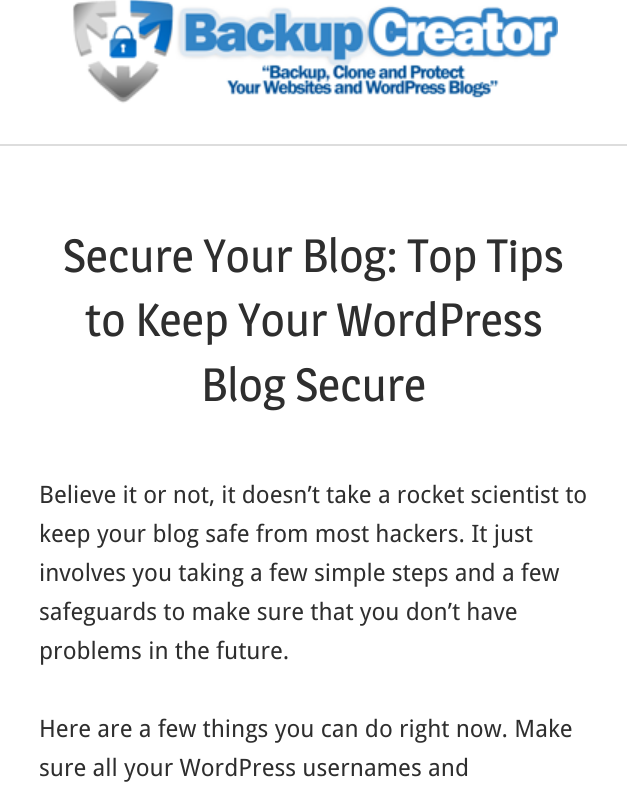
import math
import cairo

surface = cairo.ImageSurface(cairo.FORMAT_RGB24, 627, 789)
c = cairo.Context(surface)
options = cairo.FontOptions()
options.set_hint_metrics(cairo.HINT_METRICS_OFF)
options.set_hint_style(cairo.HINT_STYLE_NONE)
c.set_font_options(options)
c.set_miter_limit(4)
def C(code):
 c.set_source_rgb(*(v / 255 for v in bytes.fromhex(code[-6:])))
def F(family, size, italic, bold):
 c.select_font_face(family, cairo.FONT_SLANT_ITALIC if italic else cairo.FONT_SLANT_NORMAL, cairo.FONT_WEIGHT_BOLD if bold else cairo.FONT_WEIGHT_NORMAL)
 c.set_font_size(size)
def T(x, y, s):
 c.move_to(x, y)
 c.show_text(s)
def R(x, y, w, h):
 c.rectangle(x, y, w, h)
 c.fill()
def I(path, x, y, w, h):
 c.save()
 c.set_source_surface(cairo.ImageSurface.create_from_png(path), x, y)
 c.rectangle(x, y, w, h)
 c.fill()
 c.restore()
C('dddddd')
c.paint()
C('ffffff')
R(0,0,627,144)
I('1.png',72,0,486,104)
R(0,146,627,643)
F('Magra',46.5,0,0)
C('2e2e2e')
T(63,272,'Secure Your Blog: Top Tips')
T(85,336,'to Keep Your WordPress')
T(201,401,'Blog Secure')
F('Droid Sans',24,0,0)
T(39,503,'Believe it or not, it doesn’t take a rocket scientist to')
T(39,542,'keep your blog safe from most hackers. It just')
T(39,581,'involves you taking a few simple steps and a few')
T(39,620,'safeguards to make sure that you don’t have')
T(39,659,'problems in the future.')
T(39,737,'Here are a few things you can do right now. Make')
T(39,776,'sure all your WordPress usernames and')
surface.write_to_png('o.png')
